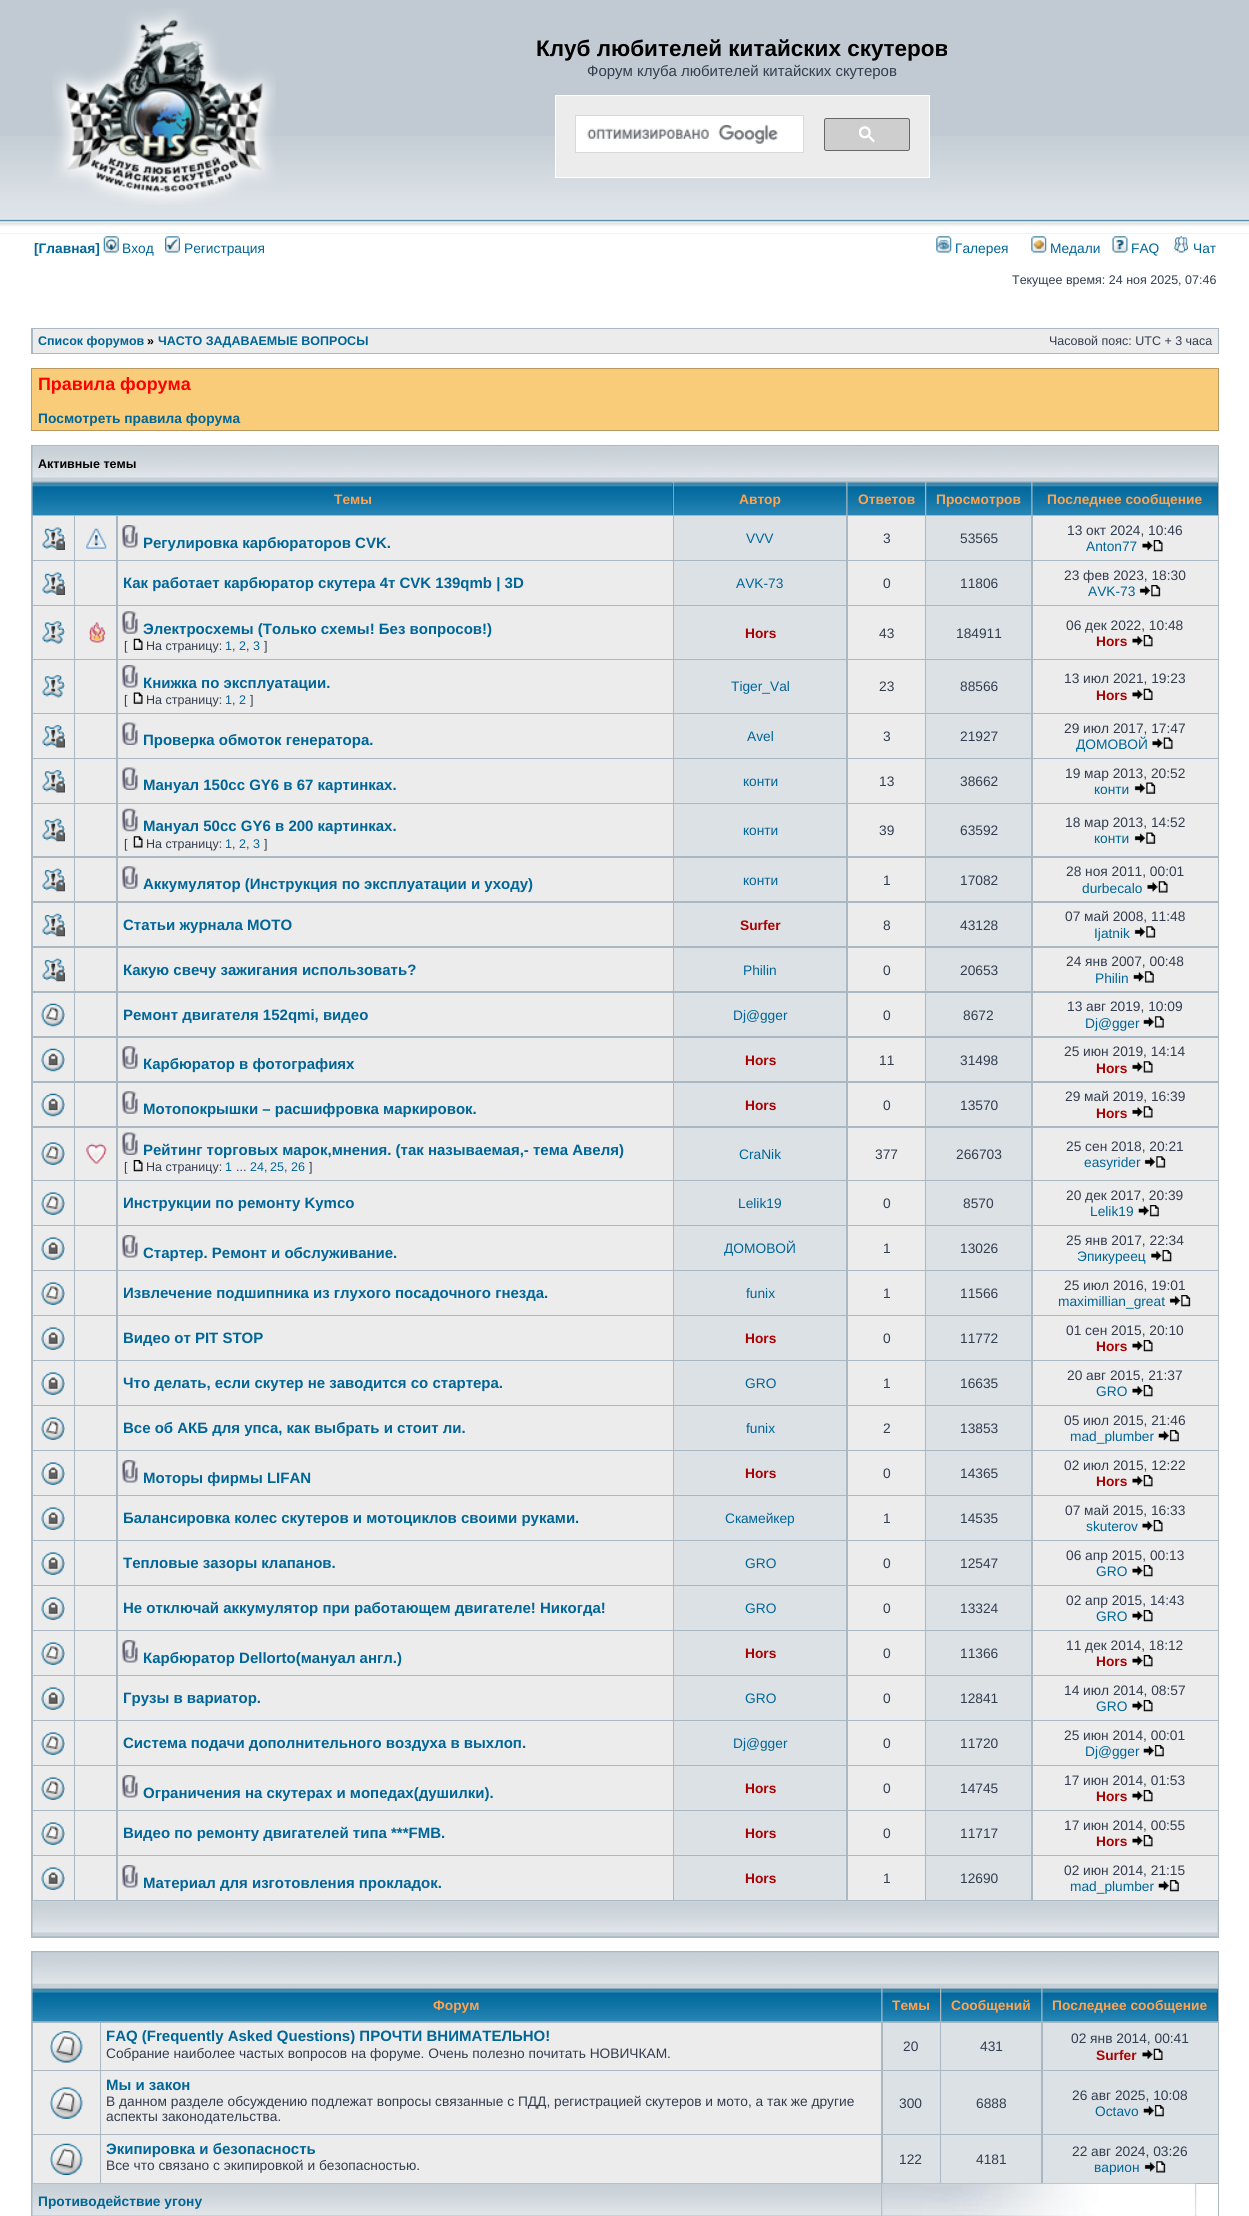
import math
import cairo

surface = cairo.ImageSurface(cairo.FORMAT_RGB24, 1249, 2216)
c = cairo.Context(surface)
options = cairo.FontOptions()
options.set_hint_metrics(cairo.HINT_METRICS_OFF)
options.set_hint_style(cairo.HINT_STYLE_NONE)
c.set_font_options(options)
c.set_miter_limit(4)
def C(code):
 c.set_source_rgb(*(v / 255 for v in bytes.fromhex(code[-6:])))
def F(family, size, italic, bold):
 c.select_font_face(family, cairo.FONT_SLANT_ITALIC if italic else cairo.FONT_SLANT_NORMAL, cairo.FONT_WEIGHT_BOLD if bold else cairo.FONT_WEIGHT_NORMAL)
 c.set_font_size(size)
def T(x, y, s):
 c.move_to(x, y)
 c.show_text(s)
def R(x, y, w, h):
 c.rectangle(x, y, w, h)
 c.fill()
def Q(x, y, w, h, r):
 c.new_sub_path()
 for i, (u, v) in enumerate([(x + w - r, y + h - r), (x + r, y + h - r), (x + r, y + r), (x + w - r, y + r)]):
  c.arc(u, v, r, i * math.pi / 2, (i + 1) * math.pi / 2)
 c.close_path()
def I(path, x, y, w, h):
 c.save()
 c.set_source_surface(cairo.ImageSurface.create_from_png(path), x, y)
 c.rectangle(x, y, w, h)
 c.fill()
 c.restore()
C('ffffff')
c.paint()
C('c1cad2')
R(0,0,1249,234)
I('1.png',0,136,1249,98)
I('2.png',52,8,224,197)
F('Liberation Sans',22.5,0,1)
C('000000')
T(536,56,'Клуб любителей китайских скутеров')
F('Liberation Sans',15,0,0)
C('323d4f')
T(587,76,'Форум клуба любителей китайских скутеров')
C('ececec')
c.rectangle(555.5,95.5,374,82)
c.fill_preserve()
C('ffffff')
c.set_line_width(1)
c.stroke()
c.rectangle(575.5,115.5,228,37)
c.fill_preserve()
C('d9d9d9')
c.stroke()
I('3.png',587,125,191,19)
C('cecece')
Q(824.5,118.5,85,32,2)
c.fill_preserve()
C('666666')
c.stroke()
I('4.png',859,126,16,17)
F('Liberation Sans',13.75,0,1)
C('006597')
T(34,253,'[Главная]')
I('5.png',103,236,16,17)
F('Liberation Sans',13.75,0,0)
T(122,253,'Вход')
I('6.png',165,236,15,17)
T(184,253,'Регистрация')
I('7.png',936,236,16,17)
T(955,253,'Галерея')
I('8.png',1031,236,16,17)
T(1050,253,'Медали')
I('9.png',1112,236,16,17)
T(1131,253,'FAQ')
I('10.png',1174,236,14,17)
T(1193,253,'Чат')
F('Liberation Sans',12.5,0,0)
C('323d4f')
T(1012,284,'Текущее время: 24 ноя 2025, 07:46')
C('a9b8c2')
R(31,328,1188,26)
C('ececec')
R(33,329,1185,24)
F('Liberation Sans',12.5,0,1)
C('006597')
T(38,345,'Список форумов')
C('000000')
T(147,345,'»')
C('006597')
T(158,345,'ЧАСТО ЗАДАВАЕМЫЕ ВОПРОСЫ')
F('Liberation Sans',12.5,0,0)
C('323d4f')
T(1049,345,'Часовой пояс: UTC + 3 часа')
C('f9cc79')
c.rectangle(31.5,368.5,1187,62)
c.fill_preserve()
C('bb9860')
c.stroke()
F('Liberation Sans',17.9,0,1)
C('ff0000')
T(38,390,'Правила форума')
F('Liberation Sans',13.75,0,1)
C('006597')
T(38,423,'Посмотреть правила форума')
C('a9b8c2')
R(31,445,1188,1493)
C('c7d0d7')
R(33,446,1185,35)
I('11.png',32,446,1186,36)
F('Liberation Sans',12.5,0,1)
C('000000')
T(38,468,'Активные темы')
C('006699')
R(672,483,1,32)
I('12.png',32,482,641,33)
F('Liberation Sans',13.75,0,1)
C('ffa34f')
T(334,504,'Темы')
I('13.png',673,482,174,33)
T(739,504,'Автор')
I('14.png',847,482,78,33)
T(858,504,'Ответов')
I('15.png',926,482,106,33)
T(936,504,'Просмотров')
C('006699')
R(1217,483,1,32)
I('16.png',1032,482,186,33)
C('ffa34f')
T(1047,504,'Последнее сообщение')
C('ececec')
R(33,516,41,44)
I('17.png',42,527,23,23)
R(75,516,41,44)
I('18.png',86,528,21,21)
R(118,516,555,44)
I('19.png',122,525,16,23)
F('Liberation Sans',15,0,1)
C('006597')
T(143,548,'Регулировка карбюраторов CVK.')
C('dce1e5')
R(674,516,172,44)
F('Liberation Sans',13.75,0,0)
C('006597')
T(746,543,'VVV')
C('ececec')
R(848,516,77,44)
C('323d4f')
T(883,543,'3')
C('dce1e5')
R(926,516,105,44)
C('323d4f')
T(960,543,'53565')
C('ececec')
R(1033,516,185,44)
C('323d4f')
T(1067,535,'13 окт 2024, 10:46')
C('006597')
T(1086,551,'Anton77')
I('20.png',1142,540,21,12)
C('ececec')
R(33,561,41,44)
I('21.png',42,572,23,23)
R(75,561,41,44)
R(118,561,555,44)
F('Liberation Sans',15,0,1)
C('006597')
T(123,588,'Как работает карбюратор скутера 4т CVK 139qmb | 3D')
C('dce1e5')
R(674,561,172,44)
F('Liberation Sans',13.75,0,0)
C('006597')
T(736,588,'AVK-73')
C('ececec')
R(848,561,77,44)
C('323d4f')
T(883,588,'0')
C('dce1e5')
R(926,561,105,44)
C('323d4f')
T(960,588,'11806')
C('ececec')
R(1033,561,185,44)
C('323d4f')
T(1064,580,'23 фев 2023, 18:30')
C('006597')
T(1088,596,'AVK-73')
I('22.png',1139,585,22,12)
C('ececec')
R(33,606,41,53)
I('23.png',42,621,23,23)
R(75,606,41,53)
I('24.png',88,622,18,21)
R(118,606,555,53)
I('25.png',122,611,16,23)
F('Liberation Sans',15,0,1)
C('006597')
T(143,634,'Электросхемы (Только схемы! Без вопросов!)')
F('Liberation Sans',12.5,0,0)
C('323d4f')
T(124,650,'[')
I('26.png',133,638,10,12)
T(146,650,'На страницу:')
C('006597')
T(225,650,'1')
C('323d4f')
T(232,650,',')
C('006597')
T(239,650,'2')
C('323d4f')
T(246,650,',')
C('006597')
T(253,650,'3')
C('323d4f')
T(264,650,']')
C('dce1e5')
R(674,606,172,53)
F('Liberation Sans',13.75,0,1)
C('aa0000')
T(745,638,'Hors')
C('ececec')
R(848,606,77,53)
F('Liberation Sans',13.75,0,0)
C('323d4f')
T(879,638,'43')
C('dce1e5')
R(926,606,105,53)
C('323d4f')
T(956,638,'184911')
C('ececec')
R(1033,606,185,53)
C('323d4f')
T(1066,630,'06 дек 2022, 10:48')
F('Liberation Sans',13.75,0,1)
C('aa0000')
T(1096,646,'Hors')
I('20.png',1132,635,21,12)
C('ececec')
R(33,660,41,53)
I('27.png',42,675,23,23)
R(75,660,41,53)
R(118,660,555,53)
I('19.png',122,665,16,23)
F('Liberation Sans',15,0,1)
C('006597')
T(143,688,'Книжка по эксплуатации.')
F('Liberation Sans',12.5,0,0)
C('323d4f')
T(124,704,'[')
I('28.png',133,692,10,12)
T(146,704,'На страницу:')
C('006597')
T(225,704,'1')
C('323d4f')
T(232,704,',')
C('006597')
T(239,704,'2')
C('323d4f')
T(250,704,']')
C('dce1e5')
R(674,660,172,53)
F('Liberation Sans',13.75,0,0)
C('006597')
T(731,691,'Tiger_Val')
C('ececec')
R(848,660,77,53)
C('323d4f')
T(879,691,'23')
C('dce1e5')
R(926,660,105,53)
C('323d4f')
T(960,691,'88566')
C('ececec')
R(1033,660,185,53)
C('323d4f')
T(1064,683,'13 июл 2021, 19:23')
F('Liberation Sans',13.75,0,1)
C('aa0000')
T(1096,700,'Hors')
I('29.png',1132,688,21,12)
C('ececec')
R(33,714,41,44)
I('30.png',42,725,23,23)
R(75,714,41,44)
R(118,714,555,44)
I('31.png',122,722,16,23)
F('Liberation Sans',15,0,1)
C('006597')
T(143,745,'Проверка обмоток генератора.')
C('dce1e5')
R(674,714,172,44)
F('Liberation Sans',13.75,0,0)
C('006597')
T(747,741,'Avel')
C('ececec')
R(848,714,77,44)
C('323d4f')
T(883,741,'3')
C('dce1e5')
R(926,714,105,44)
C('323d4f')
T(960,741,'21927')
C('ececec')
R(1033,714,185,44)
C('323d4f')
T(1064,733,'29 июл 2017, 17:47')
C('006597')
T(1076,749,'ДОМОВОЙ')
I('32.png',1152,737,21,12)
C('ececec')
R(33,759,41,44)
I('30.png',42,770,23,23)
R(75,759,41,44)
R(118,759,555,44)
I('31.png',122,767,16,23)
F('Liberation Sans',15,0,1)
C('006597')
T(143,790,'Мануал 150cc GY6 в 67 картинках.')
C('dce1e5')
R(674,759,172,44)
F('Liberation Sans',13.75,0,0)
C('006597')
T(743,786,'конти')
C('ececec')
R(848,759,77,44)
C('323d4f')
T(879,786,'13')
C('dce1e5')
R(926,759,105,44)
C('323d4f')
T(960,786,'38662')
C('ececec')
R(1033,759,185,44)
C('323d4f')
T(1065,778,'19 мар 2013, 20:52')
C('006597')
T(1094,794,'конти')
I('33.png',1134,782,22,12)
C('ececec')
R(33,804,41,52)
I('34.png',42,818,23,24)
R(75,804,41,52)
R(118,804,555,52)
I('35.png',122,808,16,24)
F('Liberation Sans',15,0,1)
C('006597')
T(143,831,'Мануал 50cc GY6 в 200 картинках.')
F('Liberation Sans',12.5,0,0)
C('323d4f')
T(124,848,'[')
I('36.png',133,836,10,12)
T(146,848,'На страницу:')
C('006597')
T(225,848,'1')
C('323d4f')
T(232,848,',')
C('006597')
T(239,848,'2')
C('323d4f')
T(246,848,',')
C('006597')
T(253,848,'3')
C('323d4f')
T(264,848,']')
C('dce1e5')
R(674,804,172,52)
F('Liberation Sans',13.75,0,0)
C('006597')
T(743,835,'конти')
C('ececec')
R(848,804,77,52)
C('323d4f')
T(879,835,'39')
C('dce1e5')
R(926,804,105,52)
C('323d4f')
T(960,835,'63592')
C('ececec')
R(1033,804,185,52)
C('323d4f')
T(1065,827,'18 мар 2013, 14:52')
C('006597')
T(1094,843,'конти')
I('33.png',1134,832,22,12)
C('ececec')
R(33,858,41,43)
I('34.png',42,868,23,24)
R(75,858,41,43)
R(118,858,555,43)
I('25.png',122,866,16,23)
F('Liberation Sans',15,0,1)
C('006597')
T(143,889,'Аккумулятор (Инструкция по эксплуатации и уходу)')
C('dce1e5')
R(674,858,172,43)
F('Liberation Sans',13.75,0,0)
C('006597')
T(743,885,'конти')
C('ececec')
R(848,858,77,43)
C('323d4f')
T(883,885,'1')
C('dce1e5')
R(926,858,105,43)
C('323d4f')
T(960,885,'17082')
C('ececec')
R(1033,858,185,43)
C('323d4f')
T(1066,876,'28 ноя 2011, 00:01')
C('006597')
T(1082,893,'durbecalo')
I('37.png',1147,881,21,12)
C('ececec')
R(33,903,41,43)
I('34.png',42,913,23,24)
R(75,903,41,43)
R(118,903,555,43)
F('Liberation Sans',15,0,1)
C('006597')
T(123,930,'Статьи журнала МОТО')
C('dce1e5')
R(674,903,172,43)
F('Liberation Sans',13.75,0,1)
C('aa0000')
T(740,930,'Surfer')
C('ececec')
R(848,903,77,43)
F('Liberation Sans',13.75,0,0)
C('323d4f')
T(883,930,'8')
C('dce1e5')
R(926,903,105,43)
C('323d4f')
T(960,930,'43128')
C('ececec')
R(1033,903,185,43)
C('323d4f')
T(1065,921,'07 май 2008, 11:48')
C('006597')
T(1094,938,'Ijatnik')
I('38.png',1134,926,22,12)
C('ececec')
R(33,948,41,43)
I('34.png',42,958,23,24)
R(75,948,41,43)
R(118,948,555,43)
F('Liberation Sans',15,0,1)
C('006597')
T(123,975,'Какую свечу зажигания использовать?')
C('dce1e5')
R(674,948,172,43)
F('Liberation Sans',13.75,0,0)
C('006597')
T(743,975,'Philin')
C('ececec')
R(848,948,77,43)
C('323d4f')
T(883,975,'0')
C('dce1e5')
R(926,948,105,43)
C('323d4f')
T(960,975,'20653')
C('ececec')
R(1033,948,185,43)
C('323d4f')
T(1066,966,'24 янв 2007, 00:48')
C('006597')
T(1095,983,'Philin')
I('39.png',1133,971,21,12)
C('ececec')
R(33,993,41,43)
I('40.png',41,1003,24,24)
R(75,993,41,43)
R(118,993,555,43)
F('Liberation Sans',15,0,1)
C('006597')
T(123,1020,'Ремонт двигателя 152qmi, видео')
C('dce1e5')
R(674,993,172,43)
F('Liberation Sans',13.75,0,0)
C('006597')
T(733,1020,'Dj@gger')
C('ececec')
R(848,993,77,43)
C('323d4f')
T(883,1020,'0')
C('dce1e5')
R(926,993,105,43)
C('323d4f')
T(963,1020,'8672')
C('ececec')
R(1033,993,185,43)
C('323d4f')
T(1067,1011,'13 авг 2019, 10:09')
C('006597')
T(1085,1028,'Dj@gger')
I('39.png',1143,1016,21,12)
C('ececec')
R(33,1038,41,43)
I('41.png',41,1048,24,24)
R(75,1038,41,43)
R(118,1038,555,43)
I('25.png',122,1046,16,23)
F('Liberation Sans',15,0,1)
C('006597')
T(143,1069,'Карбюратор в фотографиях')
C('dce1e5')
R(674,1038,172,43)
F('Liberation Sans',13.75,0,1)
C('aa0000')
T(745,1065,'Hors')
C('ececec')
R(848,1038,77,43)
F('Liberation Sans',13.75,0,0)
C('323d4f')
T(879,1065,'11')
C('dce1e5')
R(926,1038,105,43)
C('323d4f')
T(960,1065,'31498')
C('ececec')
R(1033,1038,185,43)
C('323d4f')
T(1064,1056,'25 июн 2019, 14:14')
F('Liberation Sans',13.75,0,1)
C('aa0000')
T(1096,1073,'Hors')
I('37.png',1132,1061,21,12)
C('ececec')
R(33,1083,41,43)
I('41.png',41,1093,24,24)
R(75,1083,41,43)
R(118,1083,555,43)
I('25.png',122,1091,16,23)
F('Liberation Sans',15,0,1)
C('006597')
T(143,1114,'Мотопокрышки – расшифровка маркировок.')
C('dce1e5')
R(674,1083,172,43)
F('Liberation Sans',13.75,0,1)
C('aa0000')
T(745,1110,'Hors')
C('ececec')
R(848,1083,77,43)
F('Liberation Sans',13.75,0,0)
C('323d4f')
T(883,1110,'0')
C('dce1e5')
R(926,1083,105,43)
C('323d4f')
T(960,1110,'13570')
C('ececec')
R(1033,1083,185,43)
C('323d4f')
T(1065,1101,'29 май 2019, 16:39')
F('Liberation Sans',13.75,0,1)
C('aa0000')
T(1096,1118,'Hors')
I('37.png',1132,1106,21,12)
C('ececec')
R(33,1128,41,52)
I('42.png',41,1142,24,23)
R(75,1128,41,52)
I('43.png',86,1143,21,21)
R(118,1128,555,52)
I('31.png',122,1132,16,23)
F('Liberation Sans',15,0,1)
C('006597')
T(143,1155,'Рейтинг торговых марок,мнения. (так называемая,- тема Авеля)')
F('Liberation Sans',12.5,0,0)
C('323d4f')
T(124,1171,'[')
I('44.png',133,1160,10,12)
T(146,1171,'На страницу:')
C('006597')
T(225,1171,'1')
C('323d4f')
T(236,1171,'...')
C('006597')
T(250,1171,'24')
C('323d4f')
T(264,1171,',')
C('006597')
T(270,1171,'25')
C('323d4f')
T(284,1171,',')
C('006597')
T(291,1171,'26')
C('323d4f')
T(309,1171,']')
C('dce1e5')
R(674,1128,172,52)
F('Liberation Sans',13.75,0,0)
C('006597')
T(739,1159,'CraNik')
C('ececec')
R(848,1128,77,52)
C('323d4f')
T(875,1159,'377')
C('dce1e5')
R(926,1128,105,52)
C('323d4f')
T(956,1159,'266703')
C('ececec')
R(1033,1128,185,52)
C('323d4f')
T(1066,1151,'25 сен 2018, 20:21')
C('006597')
T(1084,1167,'easyrider')
I('38.png',1144,1156,22,12)
C('ececec')
R(33,1181,41,44)
I('45.png',41,1192,24,23)
R(75,1181,41,44)
R(118,1181,555,44)
F('Liberation Sans',15,0,1)
C('006597')
T(123,1208,'Инструкции по ремонту Kymco')
C('dce1e5')
R(674,1181,172,44)
F('Liberation Sans',13.75,0,0)
C('006597')
T(738,1208,'Lelik19')
C('ececec')
R(848,1181,77,44)
C('323d4f')
T(883,1208,'0')
C('dce1e5')
R(926,1181,105,44)
C('323d4f')
T(963,1208,'8570')
C('ececec')
R(1033,1181,185,44)
C('323d4f')
T(1066,1200,'20 дек 2017, 20:39')
C('006597')
T(1090,1216,'Lelik19')
I('46.png',1138,1205,21,12)
C('ececec')
R(33,1226,41,44)
I('47.png',41,1237,24,23)
R(75,1226,41,44)
R(118,1226,555,44)
I('19.png',122,1235,16,23)
F('Liberation Sans',15,0,1)
C('006597')
T(143,1258,'Стартер. Ремонт и обслуживание.')
C('dce1e5')
R(674,1226,172,44)
F('Liberation Sans',13.75,0,0)
C('006597')
T(724,1253,'ДОМОВОЙ')
C('ececec')
R(848,1226,77,44)
C('323d4f')
T(883,1253,'1')
C('dce1e5')
R(926,1226,105,44)
C('323d4f')
T(960,1253,'13026')
C('ececec')
R(1033,1226,185,44)
C('323d4f')
T(1066,1245,'25 янв 2017, 22:34')
C('006597')
T(1077,1261,'Эпикуреец')
I('48.png',1151,1250,21,12)
C('ececec')
R(33,1271,41,44)
I('45.png',41,1282,24,23)
R(75,1271,41,44)
R(118,1271,555,44)
F('Liberation Sans',15,0,1)
C('006597')
T(123,1298,'Извлечение подшипника из глухого посадочного гнезда.')
C('dce1e5')
R(674,1271,172,44)
F('Liberation Sans',13.75,0,0)
C('006597')
T(746,1298,'funix')
C('ececec')
R(848,1271,77,44)
C('323d4f')
T(883,1298,'1')
C('dce1e5')
R(926,1271,105,44)
C('323d4f')
T(960,1298,'11566')
C('ececec')
R(1033,1271,185,44)
C('323d4f')
T(1064,1290,'25 июл 2016, 19:01')
C('006597')
T(1058,1306,'maximillian_great')
I('49.png',1169,1295,22,12)
C('ececec')
R(33,1316,41,44)
I('47.png',41,1327,24,23)
R(75,1316,41,44)
R(118,1316,555,44)
F('Liberation Sans',15,0,1)
C('006597')
T(123,1343,'Видео от PIT STOP')
C('dce1e5')
R(674,1316,172,44)
F('Liberation Sans',13.75,0,1)
C('aa0000')
T(745,1343,'Hors')
C('ececec')
R(848,1316,77,44)
F('Liberation Sans',13.75,0,0)
C('323d4f')
T(883,1343,'0')
C('dce1e5')
R(926,1316,105,44)
C('323d4f')
T(960,1343,'11772')
C('ececec')
R(1033,1316,185,44)
C('323d4f')
T(1066,1335,'01 сен 2015, 20:10')
F('Liberation Sans',13.75,0,1)
C('aa0000')
T(1096,1351,'Hors')
I('20.png',1132,1340,21,12)
C('ececec')
R(33,1361,41,44)
I('47.png',41,1372,24,23)
R(75,1361,41,44)
R(118,1361,555,44)
F('Liberation Sans',15,0,1)
C('006597')
T(123,1388,'Что делать, если скутер не заводится со стартера.')
C('dce1e5')
R(674,1361,172,44)
F('Liberation Sans',13.75,0,0)
C('006597')
T(745,1388,'GRO')
C('ececec')
R(848,1361,77,44)
C('323d4f')
T(883,1388,'1')
C('dce1e5')
R(926,1361,105,44)
C('323d4f')
T(960,1388,'16635')
C('ececec')
R(1033,1361,185,44)
C('323d4f')
T(1067,1380,'20 авг 2015, 21:37')
C('006597')
T(1096,1396,'GRO')
I('20.png',1132,1385,21,12)
C('ececec')
R(33,1406,41,44)
I('45.png',41,1417,24,23)
R(75,1406,41,44)
R(118,1406,555,44)
F('Liberation Sans',15,0,1)
C('006597')
T(123,1433,'Все об АКБ для упса, как выбрать и стоит ли.')
C('dce1e5')
R(674,1406,172,44)
F('Liberation Sans',13.75,0,0)
C('006597')
T(746,1433,'funix')
C('ececec')
R(848,1406,77,44)
C('323d4f')
T(883,1433,'2')
C('dce1e5')
R(926,1406,105,44)
C('323d4f')
T(960,1433,'13853')
C('ececec')
R(1033,1406,185,44)
C('323d4f')
T(1064,1425,'05 июл 2015, 21:46')
C('006597')
T(1070,1441,'mad_plumber')
I('46.png',1158,1430,21,12)
C('ececec')
R(33,1451,41,44)
I('47.png',41,1462,24,23)
R(75,1451,41,44)
R(118,1451,555,44)
I('19.png',122,1460,16,23)
F('Liberation Sans',15,0,1)
C('006597')
T(143,1483,'Моторы фирмы LIFAN')
C('dce1e5')
R(674,1451,172,44)
F('Liberation Sans',13.75,0,1)
C('aa0000')
T(745,1478,'Hors')
C('ececec')
R(848,1451,77,44)
F('Liberation Sans',13.75,0,0)
C('323d4f')
T(883,1478,'0')
C('dce1e5')
R(926,1451,105,44)
C('323d4f')
T(960,1478,'14365')
C('ececec')
R(1033,1451,185,44)
C('323d4f')
T(1064,1470,'02 июл 2015, 12:22')
F('Liberation Sans',13.75,0,1)
C('aa0000')
T(1096,1486,'Hors')
I('20.png',1132,1475,21,12)
C('ececec')
R(33,1496,41,44)
I('47.png',41,1507,24,23)
R(75,1496,41,44)
R(118,1496,555,44)
F('Liberation Sans',15,0,1)
C('006597')
T(123,1523,'Балансировка колес скутеров и мотоциклов своими руками.')
C('dce1e5')
R(674,1496,172,44)
F('Liberation Sans',13.75,0,0)
C('006597')
T(725,1523,'Скамейкер')
C('ececec')
R(848,1496,77,44)
C('323d4f')
T(883,1523,'1')
C('dce1e5')
R(926,1496,105,44)
C('323d4f')
T(960,1523,'14535')
C('ececec')
R(1033,1496,185,44)
C('323d4f')
T(1065,1515,'07 май 2015, 16:33')
C('006597')
T(1086,1531,'skuterov')
I('20.png',1142,1520,21,12)
C('ececec')
R(33,1541,41,44)
I('50.png',41,1552,24,23)
R(75,1541,41,44)
R(118,1541,555,44)
F('Liberation Sans',15,0,1)
C('006597')
T(123,1568,'Тепловые зазоры клапанов.')
C('dce1e5')
R(674,1541,172,44)
F('Liberation Sans',13.75,0,0)
C('006597')
T(745,1568,'GRO')
C('ececec')
R(848,1541,77,44)
C('323d4f')
T(883,1568,'0')
C('dce1e5')
R(926,1541,105,44)
C('323d4f')
T(960,1568,'12547')
C('ececec')
R(1033,1541,185,44)
C('323d4f')
T(1066,1560,'06 апр 2015, 00:13')
C('006597')
T(1096,1576,'GRO')
I('20.png',1132,1565,21,12)
C('ececec')
R(33,1586,41,44)
I('47.png',41,1597,24,23)
R(75,1586,41,44)
R(118,1586,555,44)
F('Liberation Sans',15,0,1)
C('006597')
T(123,1613,'Не отключай аккумулятор при работающем двигателе! Никогда!')
C('dce1e5')
R(674,1586,172,44)
F('Liberation Sans',13.75,0,0)
C('006597')
T(745,1613,'GRO')
C('ececec')
R(848,1586,77,44)
C('323d4f')
T(883,1613,'0')
C('dce1e5')
R(926,1586,105,44)
C('323d4f')
T(960,1613,'13324')
C('ececec')
R(1033,1586,185,44)
C('323d4f')
T(1066,1605,'02 апр 2015, 14:43')
C('006597')
T(1096,1621,'GRO')
I('20.png',1132,1610,21,12)
C('ececec')
R(33,1631,41,44)
I('45.png',41,1642,24,23)
R(75,1631,41,44)
R(118,1631,555,44)
I('19.png',122,1640,16,23)
F('Liberation Sans',15,0,1)
C('006597')
T(143,1663,'Карбюратор Dellorto(мануал англ.)')
C('dce1e5')
R(674,1631,172,44)
F('Liberation Sans',13.75,0,1)
C('aa0000')
T(745,1658,'Hors')
C('ececec')
R(848,1631,77,44)
F('Liberation Sans',13.75,0,0)
C('323d4f')
T(883,1658,'0')
C('dce1e5')
R(926,1631,105,44)
C('323d4f')
T(960,1658,'11366')
C('ececec')
R(1033,1631,185,44)
C('323d4f')
T(1066,1650,'11 дек 2014, 18:12')
F('Liberation Sans',13.75,0,1)
C('aa0000')
T(1096,1666,'Hors')
I('20.png',1132,1655,21,12)
C('ececec')
R(33,1676,41,44)
I('47.png',41,1687,24,23)
R(75,1676,41,44)
R(118,1676,555,44)
F('Liberation Sans',15,0,1)
C('006597')
T(123,1703,'Грузы в вариатор.')
C('dce1e5')
R(674,1676,172,44)
F('Liberation Sans',13.75,0,0)
C('006597')
T(745,1703,'GRO')
C('ececec')
R(848,1676,77,44)
C('323d4f')
T(883,1703,'0')
C('dce1e5')
R(926,1676,105,44)
C('323d4f')
T(960,1703,'12841')
C('ececec')
R(1033,1676,185,44)
C('323d4f')
T(1064,1695,'14 июл 2014, 08:57')
C('006597')
T(1096,1711,'GRO')
I('20.png',1132,1700,21,12)
C('ececec')
R(33,1721,41,44)
I('45.png',41,1732,24,23)
R(75,1721,41,44)
R(118,1721,555,44)
F('Liberation Sans',15,0,1)
C('006597')
T(123,1748,'Система подачи дополнительного воздуха в выхлоп.')
C('dce1e5')
R(674,1721,172,44)
F('Liberation Sans',13.75,0,0)
C('006597')
T(733,1748,'Dj@gger')
C('ececec')
R(848,1721,77,44)
C('323d4f')
T(883,1748,'0')
C('dce1e5')
R(926,1721,105,44)
C('323d4f')
T(960,1748,'11720')
C('ececec')
R(1033,1721,185,44)
C('323d4f')
T(1064,1740,'25 июн 2014, 00:01')
C('006597')
T(1085,1756,'Dj@gger')
I('46.png',1143,1745,21,12)
C('ececec')
R(33,1766,41,44)
I('45.png',41,1777,24,23)
R(75,1766,41,44)
R(118,1766,555,44)
I('19.png',122,1775,16,23)
F('Liberation Sans',15,0,1)
C('006597')
T(143,1798,'Ограничения на скутерах и мопедах(душилки).')
C('dce1e5')
R(674,1766,172,44)
F('Liberation Sans',13.75,0,1)
C('aa0000')
T(745,1793,'Hors')
C('ececec')
R(848,1766,77,44)
F('Liberation Sans',13.75,0,0)
C('323d4f')
T(883,1793,'0')
C('dce1e5')
R(926,1766,105,44)
C('323d4f')
T(960,1793,'14745')
C('ececec')
R(1033,1766,185,44)
C('323d4f')
T(1064,1785,'17 июн 2014, 01:53')
F('Liberation Sans',13.75,0,1)
C('aa0000')
T(1096,1801,'Hors')
I('20.png',1132,1790,21,12)
C('ececec')
R(33,1811,41,44)
I('45.png',41,1822,24,23)
R(75,1811,41,44)
R(118,1811,555,44)
F('Liberation Sans',15,0,1)
C('006597')
T(123,1838,'Видео по ремонту двигателей типа ***FMB.')
C('dce1e5')
R(674,1811,172,44)
F('Liberation Sans',13.75,0,1)
C('aa0000')
T(745,1838,'Hors')
C('ececec')
R(848,1811,77,44)
F('Liberation Sans',13.75,0,0)
C('323d4f')
T(883,1838,'0')
C('dce1e5')
R(926,1811,105,44)
C('323d4f')
T(960,1838,'11717')
C('ececec')
R(1033,1811,185,44)
C('323d4f')
T(1064,1830,'17 июн 2014, 00:55')
F('Liberation Sans',13.75,0,1)
C('aa0000')
T(1096,1846,'Hors')
I('20.png',1132,1835,21,12)
C('ececec')
R(33,1856,41,44)
I('47.png',41,1867,24,23)
R(75,1856,41,44)
R(118,1856,555,44)
I('19.png',122,1865,16,23)
F('Liberation Sans',15,0,1)
C('006597')
T(143,1888,'Материал для изготовления прокладок.')
C('dce1e5')
R(674,1856,172,44)
F('Liberation Sans',13.75,0,1)
C('aa0000')
T(745,1883,'Hors')
C('ececec')
R(848,1856,77,44)
F('Liberation Sans',13.75,0,0)
C('323d4f')
T(883,1883,'1')
C('dce1e5')
R(926,1856,105,44)
C('323d4f')
T(960,1883,'12690')
C('ececec')
R(1033,1856,185,44)
C('323d4f')
T(1064,1875,'02 июн 2014, 21:15')
C('006597')
T(1070,1891,'mad_plumber')
I('46.png',1158,1880,21,12)
C('c7d0d7')
R(33,1901,1185,35)
I('51.png',32,1901,1186,36)
C('a9b8c2')
R(31,1951,1188,265)
C('c7d0d7')
R(33,1953,1185,35)
I('52.png',32,1952,1186,36)
I('53.png',32,1988,850,34)
F('Liberation Sans',13.75,0,1)
C('ffa34f')
T(433,2010,'Форум')
I('54.png',882,1988,58,34)
T(892,2010,'Темы')
I('55.png',941,1988,101,34)
T(951,2010,'Сообщений')
C('006699')
R(1217,1989,1,32)
I('56.png',1042,1988,176,34)
C('ffa34f')
T(1052,2010,'Последнее сообщение')
C('ececec')
R(33,2023,67,47)
I('57.png',49,2031,34,32)
R(101,2023,780,47)
F('Liberation Sans',15,0,1)
C('006597')
T(106,2041,'FAQ (Frequently Asked Questions) ПРОЧТИ ВНИМАТЕЛЬНО!')
F('Liberation Sans',13.75,0,0)
C('323d4f')
T(106,2058,'Собрание наиболее частых вопросов на форуме. Очень полезно почитать НОВИЧКАМ.')
C('dce1e5')
R(883,2023,57,47)
C('323d4f')
T(903,2051,'20')
C('dce1e5')
R(941,2023,100,47)
C('323d4f')
T(980,2051,'431')
C('dce1e5')
R(1043,2023,175,47)
C('323d4f')
T(1071,2043,'02 янв 2014, 00:41')
F('Liberation Sans',13.75,0,1)
C('aa0000')
T(1096,2060,'Surfer')
I('58.png',1142,2048,21,12)
C('ececec')
R(33,2071,67,63)
I('59.png',49,2087,34,32)
R(101,2071,780,63)
F('Liberation Sans',15,0,1)
C('006597')
T(106,2090,'Мы и закон')
F('Liberation Sans',13.75,0,0)
C('323d4f')
T(106,2106,'В данном разделе обсуждению подлежат вопросы связанные с ПДД, регистрацией скутеров и мото, а так же другие')
T(106,2121,'аспекты законодательства.')
C('dce1e5')
R(883,2071,57,63)
C('323d4f')
T(899,2108,'300')
C('dce1e5')
R(941,2071,100,63)
C('323d4f')
T(976,2108,'6888')
C('dce1e5')
R(1043,2071,175,63)
C('323d4f')
T(1072,2100,'26 авг 2025, 10:08')
C('006597')
T(1095,2116,'Octavo')
I('60.png',1143,2105,21,12)
C('ececec')
R(33,2135,67,48)
I('61.png',49,2143,34,32)
R(101,2135,780,48)
F('Liberation Sans',15,0,1)
C('006597')
T(106,2154,'Экипировка и безопасность')
F('Liberation Sans',13.75,0,0)
C('323d4f')
T(106,2170,'Все что связано с экипировкой и безопасностью.')
C('dce1e5')
R(883,2135,57,48)
C('323d4f')
T(899,2164,'122')
C('dce1e5')
R(941,2135,100,48)
C('323d4f')
T(976,2164,'4181')
C('dce1e5')
R(1043,2135,175,48)
C('323d4f')
T(1072,2156,'22 авг 2024, 03:26')
C('006597')
T(1094,2172,'варион')
I('62.png',1144,2161,22,12)
I('63.png',32,2183,850,33)
F('Liberation Sans',13.75,0,1)
T(38,2206,'Противодействие угону')
C('ffffff')
R(1196,2184,22,32)
I('64.png',882,2183,315,33)
surface.write_to_png('o.png')
